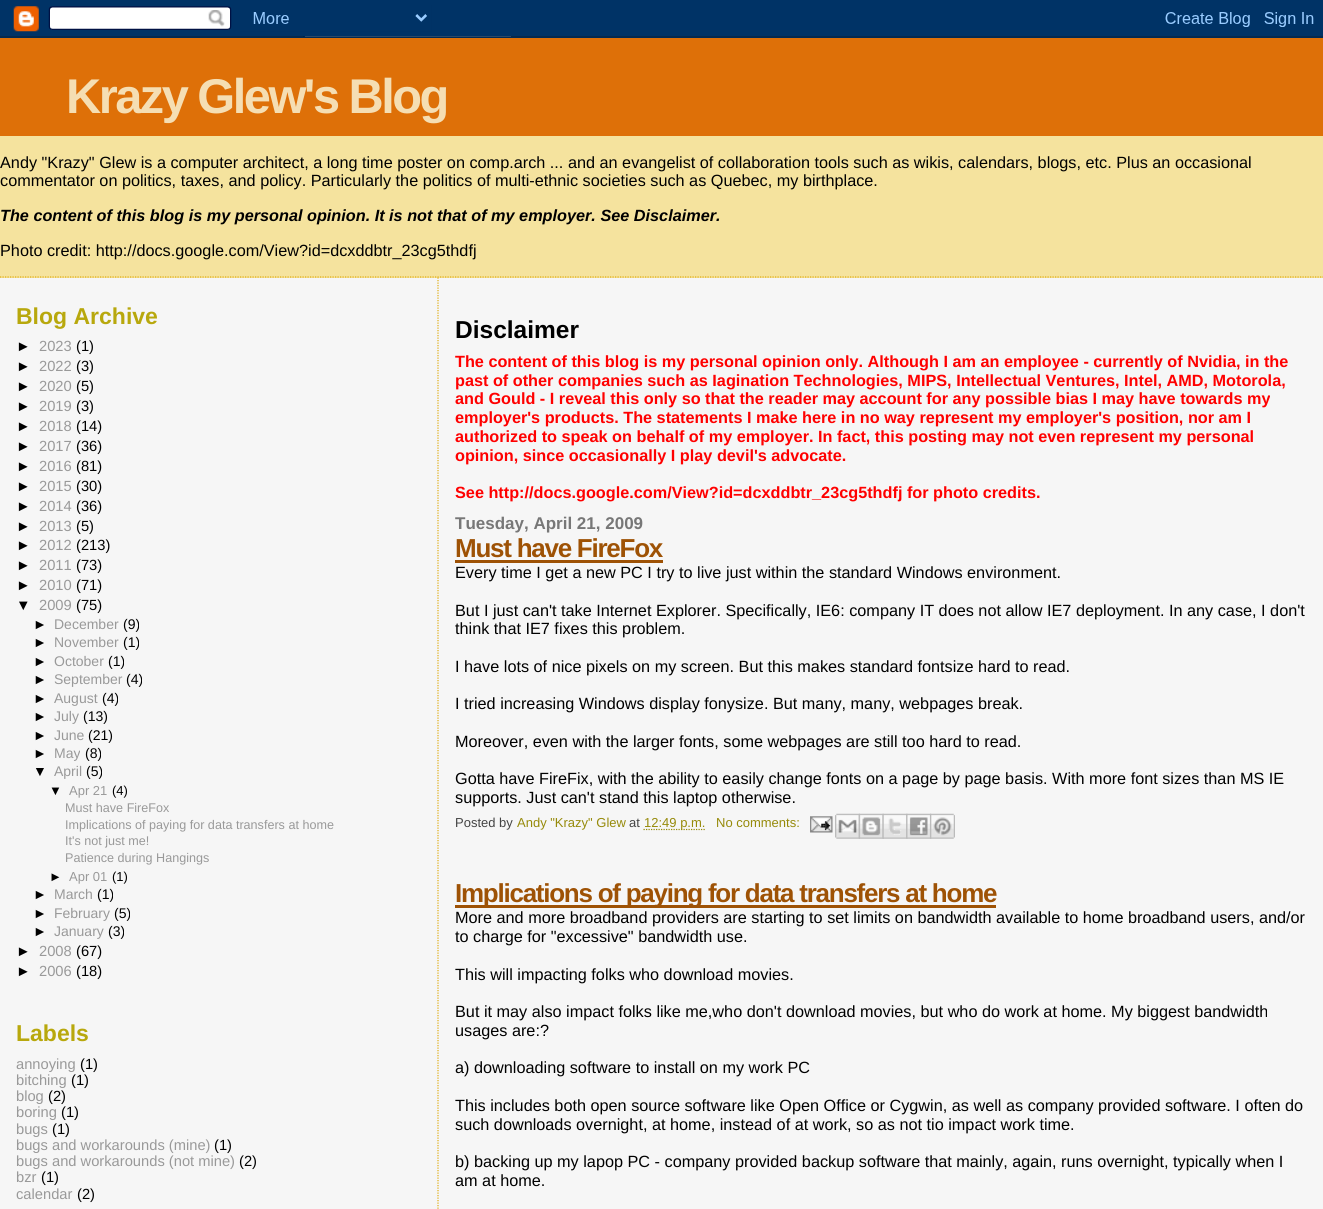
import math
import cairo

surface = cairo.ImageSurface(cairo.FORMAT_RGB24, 1323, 1209)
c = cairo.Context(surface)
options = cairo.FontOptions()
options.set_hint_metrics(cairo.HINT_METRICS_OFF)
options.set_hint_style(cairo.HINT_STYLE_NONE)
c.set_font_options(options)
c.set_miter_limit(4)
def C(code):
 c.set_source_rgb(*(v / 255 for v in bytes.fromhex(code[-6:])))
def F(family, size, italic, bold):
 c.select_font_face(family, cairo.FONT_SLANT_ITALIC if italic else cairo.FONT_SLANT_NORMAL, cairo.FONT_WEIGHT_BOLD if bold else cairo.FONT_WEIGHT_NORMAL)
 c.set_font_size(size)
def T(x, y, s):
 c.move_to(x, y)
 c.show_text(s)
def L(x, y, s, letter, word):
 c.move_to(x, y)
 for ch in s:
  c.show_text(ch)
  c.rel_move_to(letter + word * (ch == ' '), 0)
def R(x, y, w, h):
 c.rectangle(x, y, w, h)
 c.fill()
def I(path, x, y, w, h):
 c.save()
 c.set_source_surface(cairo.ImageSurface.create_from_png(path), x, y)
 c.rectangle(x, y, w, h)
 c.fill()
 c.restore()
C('f6f6f6')
c.paint()
I('1.png',0,0,1323,38)
C('f5e39e')
R(0,136,1323,142)
c.new_path()
c.move_to(0,277)
c.line_to(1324,277)
C('e0ad12')
c.set_line_width(1.2)
c.set_dash([1.25,1.25])
c.stroke()
C('de7008')
R(0,38,1323,98)
F('Liberation Sans',48.75,0,1)
C('f5deb3')
L(66,113,'Krazy Glew\'s Blog',-2.5,0)
F('Liberation Sans',16.25,0,0)
C('000000')
T(0,168,'Andy "Krazy" Glew is a computer architect, a long time poster on comp.arch ... and an evangelist of collaboration tools such as wikis, calendars, blogs, etc. Plus an occasional')
T(0,186,'commentator on politics, taxes, and policy. Particularly the politics of multi-ethnic societies such as Quebec, my birthplace.')
F('Liberation Sans',16.25,1,1)
T(0,221,'The content of this blog is my personal opinion. It is not that of my employer. See Disclaimer.')
F('Liberation Sans',16.25,0,0)
T(0,256,'Photo credit: http://docs.google.com/View?id=dcxddbtr_23cg5thdfj')
F('Liberation Sans',23,0,1)
C('b8a80d')
T(16,324,'Blog Archive')
F('Liberation Sans',14.7,0,0)
C('000000')
T(16,351,'►')
C('999999')
T(39,351,'2023')
C('000000')
T(76,351,'(1)')
T(16,371,'►')
C('999999')
T(39,371,'2022')
C('000000')
T(76,371,'(3)')
T(16,391,'►')
C('999999')
T(39,391,'2020')
C('000000')
T(76,391,'(5)')
T(16,411,'►')
C('999999')
T(39,411,'2019')
C('000000')
T(76,411,'(3)')
T(16,431,'►')
C('999999')
T(39,431,'2018')
C('000000')
T(76,431,'(14)')
T(16,451,'►')
C('999999')
T(39,451,'2017')
C('000000')
T(76,451,'(36)')
T(16,471,'►')
C('999999')
T(39,471,'2016')
C('000000')
T(76,471,'(81)')
T(16,491,'►')
C('999999')
T(39,491,'2015')
C('000000')
T(76,491,'(30)')
T(16,511,'►')
C('999999')
T(39,511,'2014')
C('000000')
T(76,511,'(36)')
T(16,531,'►')
C('999999')
T(39,531,'2013')
C('000000')
T(76,531,'(5)')
T(16,550,'►')
C('999999')
T(39,550,'2012')
C('000000')
T(76,550,'(213)')
T(16,570,'►')
C('999999')
T(39,570,'2011')
C('000000')
T(76,570,'(73)')
T(16,590,'►')
C('999999')
T(39,590,'2010')
C('000000')
T(76,590,'(71)')
T(16,610,'▼')
C('999999')
T(39,610,'2009')
C('000000')
T(76,610,'(75)')
F('Liberation Sans',14,0,0)
T(33,629,'►')
C('999999')
T(54,629,'December')
C('000000')
T(123,629,'(9)')
T(33,647,'►')
C('999999')
T(54,647,'November')
C('000000')
T(123,647,'(1)')
T(33,666,'►')
C('999999')
T(54,666,'October')
C('000000')
T(108,666,'(1)')
T(33,684,'►')
C('999999')
T(54,684,'September')
C('000000')
T(126,684,'(4)')
T(33,703,'►')
C('999999')
T(54,703,'August')
C('000000')
T(102,703,'(4)')
T(33,721,'►')
C('999999')
T(54,721,'July')
C('000000')
T(83,721,'(13)')
T(33,740,'►')
C('999999')
T(54,740,'June')
C('000000')
T(88,740,'(21)')
T(33,758,'►')
C('999999')
T(54,758,'May')
C('000000')
T(85,758,'(8)')
T(33,776,'▼')
C('999999')
T(54,776,'April')
C('000000')
T(86,776,'(5)')
F('Liberation Sans',13,0,0)
T(49,795,'▼')
C('999999')
T(69,795,'Apr 21')
C('000000')
T(112,795,'(4)')
F('Liberation Sans',12.6,0,0)
C('999999')
T(65,812,'Must have FireFox')
T(65,829,'Implications of paying for data transfers at home')
T(65,845,'It\'s not just me!')
T(65,862,'Patience during Hangings')
F('Liberation Sans',13,0,0)
C('000000')
T(49,881,'►')
C('999999')
T(69,881,'Apr 01')
C('000000')
T(112,881,'(1)')
F('Liberation Sans',14,0,0)
T(33,899,'►')
C('999999')
T(54,899,'March')
C('000000')
T(97,899,'(1)')
T(33,918,'►')
C('999999')
T(54,918,'February')
C('000000')
T(114,918,'(5)')
T(33,936,'►')
C('999999')
T(54,936,'January')
C('000000')
T(108,936,'(3)')
F('Liberation Sans',14.7,0,0)
T(16,956,'►')
C('999999')
T(39,956,'2008')
C('000000')
T(76,956,'(67)')
T(16,976,'►')
C('999999')
T(39,976,'2006')
C('000000')
T(76,976,'(18)')
F('Liberation Sans',23,0,1)
C('b8a80d')
T(16,1041,'Labels')
F('Liberation Sans',14.7,0,0)
C('999999')
T(16,1069,'annoying')
C('000000')
T(80,1069,'(1)')
C('999999')
T(16,1085,'bitching')
C('000000')
T(71,1085,'(1)')
C('999999')
T(16,1101,'blog')
C('000000')
T(48,1101,'(2)')
C('999999')
T(16,1117,'boring')
C('000000')
T(61,1117,'(1)')
C('999999')
T(16,1134,'bugs')
C('000000')
T(52,1134,'(1)')
C('999999')
T(16,1150,'bugs and workarounds (mine)')
C('000000')
T(214,1150,'(1)')
C('999999')
T(16,1166,'bugs and workarounds (not mine)')
C('000000')
T(239,1166,'(2)')
C('999999')
T(16,1182,'bzr')
C('000000')
T(41,1182,'(1)')
C('999999')
T(16,1199,'calendar')
C('000000')
T(77,1199,'(2)')
c.new_path()
c.move_to(438,277.5)
c.line_to(438,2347.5)
C('e0ad12')
c.stroke()
F('Liberation Sans',24.5,0,1)
C('000000')
T(455,338,'Disclaimer')
F('Liberation Sans',16.25,0,1)
C('ff0000')
T(455,367,'The content of this blog is my personal opinion only. Although I am an employee - currently of Nvidia, in the')
T(455,386,'past of other companies such as Iagination Technologies, MIPS, Intellectual Ventures, Intel, AMD, Motorola,')
T(455,404,'and Gould - I reveal this only so that the reader may account for any possible bias I may have towards my')
T(455,423,'employer\'s products. The statements I make here in no way represent my employer\'s position, nor am I')
T(455,442,'authorized to speak on behalf of my employer. In fact, this posting may not even represent my personal')
T(455,461,'opinion, since occasionally I play devil\'s advocate.')
T(455,498,'See http://docs.google.com/View?id=dcxddbtr_23cg5thdfj for photo credits.')
F('Liberation Sans',17,0,1)
C('777777')
T(455,529,'Tuesday, April 21, 2009')
F('Liberation Sans',26,0,1)
C('9e5205')
L(455,557,'Must have FireFox',-1.25,0)
R(455,560,208,3)
F('Liberation Sans',16.25,0,0)
C('000000')
T(455,578,'Every time I get a new PC I try to live just within the standard Windows environment.')
T(455,616,'But I just can\'t take Internet Explorer. Specifically, IE6: company IT does not allow IE7 deployment. In any case, I don\'t')
T(455,634,'think that IE7 fixes this problem.')
T(455,672,'I have lots of nice pixels on my screen. But this makes standard fontsize hard to read.')
T(455,709,'I tried increasing Windows display fonysize. But many, many, webpages break.')
T(455,747,'Moreover, even with the larger fonts, some webpages are still too hard to read.')
T(455,784,'Gotta have FireFix, with the ability to easily change fonts on a page by page basis. With more font sizes than MS IE')
T(455,803,'supports. Just can\'t stand this laptop otherwise.')
F('Liberation Sans',13,0,0)
C('444444')
T(455,827,'Posted by')
C('968a0a')
T(517,827,'Andy "Krazy" Glew')
C('444444')
T(629,827,'at')
c.new_path()
c.move_to(643.5,829.5)
c.line_to(705,829.5)
C('968a0a')
c.stroke()
T(644,827,'12:49 p.m.')
T(716,827,'No comments:')
I('2.png',810,816,23,17)
I('3.png',835,813,25,26)
I('4.png',858,813,26,26)
I('5.png',882,813,26,26)
I('6.png',906,813,26,26)
I('7.png',930,813,25,26)
C('9e5205')
R(455,905,541,3)
F('Liberation Sans',26,0,1)
L(455,902,'Implications of paying for data transfers at home',-1.25,0)
F('Liberation Sans',16.25,0,0)
C('000000')
T(455,923,'More and more broadband providers are starting to set limits on bandwidth available to home broadband users, and/or')
T(455,942,'to charge for "excessive" bandwidth use.')
T(455,980,'This will impacting folks who download movies.')
T(455,1017,'But it may also impact folks like me,who don\'t download movies, but who do work at home. My biggest bandwidth')
T(455,1036,'usages are:?')
T(455,1073,'a) downloading software to install on my work PC')
T(455,1111,'This includes both open source software like Open Office or Cygwin, as well as company provided software. I often do')
T(455,1130,'such downloads overnight, at home, instead of at work, so as not tio impact work time.')
T(455,1167,'b) backing up my lapop PC - company provided backup software that mainly, again, runs overnight, typically when I')
T(455,1186,'am at home.')
surface.write_to_png('o.png')
